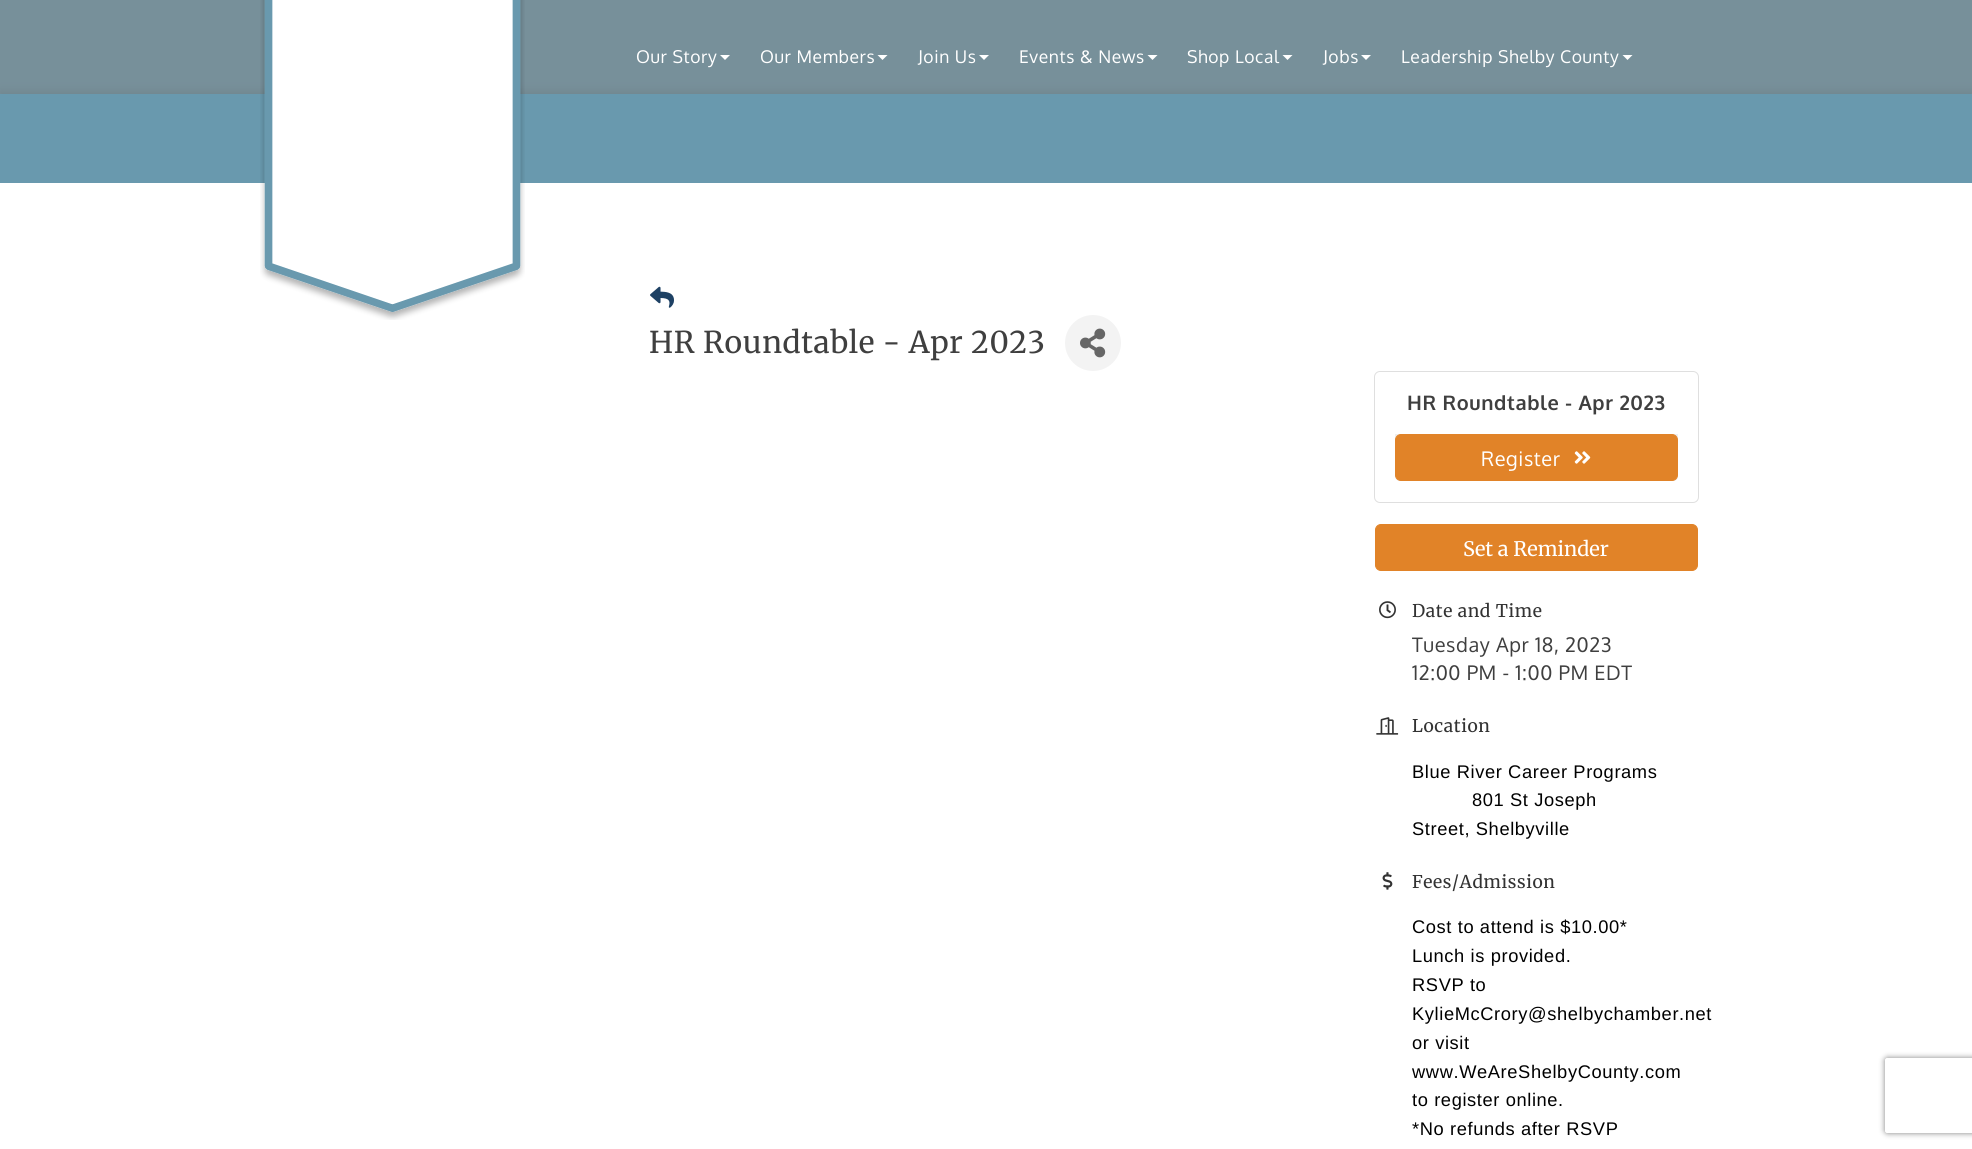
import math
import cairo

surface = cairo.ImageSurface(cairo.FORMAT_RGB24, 1972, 1149)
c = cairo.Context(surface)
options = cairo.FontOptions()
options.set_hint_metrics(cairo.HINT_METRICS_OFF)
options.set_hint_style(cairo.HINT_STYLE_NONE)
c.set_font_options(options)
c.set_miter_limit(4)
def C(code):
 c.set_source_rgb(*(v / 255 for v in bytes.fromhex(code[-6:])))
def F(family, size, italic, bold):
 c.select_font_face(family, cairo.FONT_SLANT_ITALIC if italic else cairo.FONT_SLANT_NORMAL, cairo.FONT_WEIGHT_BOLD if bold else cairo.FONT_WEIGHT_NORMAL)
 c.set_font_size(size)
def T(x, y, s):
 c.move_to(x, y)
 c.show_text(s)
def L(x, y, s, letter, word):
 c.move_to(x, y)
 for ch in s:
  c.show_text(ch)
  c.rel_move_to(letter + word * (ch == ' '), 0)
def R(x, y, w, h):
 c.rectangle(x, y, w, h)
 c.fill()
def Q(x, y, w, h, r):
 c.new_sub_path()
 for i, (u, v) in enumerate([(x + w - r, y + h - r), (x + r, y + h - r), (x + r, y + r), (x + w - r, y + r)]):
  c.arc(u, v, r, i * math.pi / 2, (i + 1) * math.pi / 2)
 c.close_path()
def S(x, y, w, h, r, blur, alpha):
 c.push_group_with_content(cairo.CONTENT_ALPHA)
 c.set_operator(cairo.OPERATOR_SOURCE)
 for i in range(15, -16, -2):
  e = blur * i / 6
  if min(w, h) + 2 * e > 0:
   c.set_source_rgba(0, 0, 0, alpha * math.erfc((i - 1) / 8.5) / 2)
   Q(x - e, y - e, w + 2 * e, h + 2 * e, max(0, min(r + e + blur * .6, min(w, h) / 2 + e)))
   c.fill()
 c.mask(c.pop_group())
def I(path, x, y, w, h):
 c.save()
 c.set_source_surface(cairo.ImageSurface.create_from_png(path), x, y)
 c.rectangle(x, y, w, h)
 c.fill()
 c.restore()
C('6999ae')
c.paint()
C('000000')
S(0,91,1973,89,0,4,.3)
c.set_source_rgba(0.482,0.553,0.584,0.8)
R(0,0,1972,94)
C('6999ae')
R(0,94,1972,89)
C('ffffff')
R(0,183,1972,966)
I('1.png',260,0,265,320)
F('Oxygen',17.5,0,0)
L(636,63,'Our Story',.6,0)
c.new_path()
c.move_to(720,55)
c.line_to(730,55)
c.line_to(725,60)
c.close_path()
c.fill()
L(760,63,'Our Members',.6,0)
c.new_path()
c.move_to(877.5,55)
c.line_to(887.5,55)
c.line_to(882.5,60)
c.close_path()
c.fill()
L(918,63,'Join Us',.6,0)
c.new_path()
c.move_to(979,55)
c.line_to(989,55)
c.line_to(984,60)
c.close_path()
c.fill()
L(1019,63,'Events & News',.6,0)
c.new_path()
c.move_to(1147.5,55)
c.line_to(1157.5,55)
c.line_to(1152.5,60)
c.close_path()
c.fill()
L(1187,63,'Shop Local',.6,0)
c.new_path()
c.move_to(1282.5,55)
c.line_to(1292.5,55)
c.line_to(1287.5,60)
c.close_path()
c.fill()
L(1323,63,'Jobs',.6,0)
c.new_path()
c.move_to(1361,55)
c.line_to(1371,55)
c.line_to(1366,60)
c.close_path()
c.fill()
L(1401,63,'Leadership Shelby County',.6,0)
c.new_path()
c.move_to(1622.5,55)
c.line_to(1632.5,55)
c.line_to(1627.5,60)
c.close_path()
c.fill()
I('2.png',650,286,24,22)
F('Merriweather',30,0,0)
C('3f3f3f')
L(649,353,'HR Roundtable - Apr 2023',.6,0)
C('f3f3f3')
c.new_path()
c.arc(1093,343,28,0,2 * math.pi)
c.fill()
I('3.png',1080,328,26,30)
Q(1374.5,371.5,324,131,5.5)
C('dfdfdf')
c.set_line_width(1)
c.stroke()
F('Oxygen',20,0,1)
C('3f3f3f')
L(1407,410,'HR Roundtable - Apr 2023',.6,0)
C('efefef')
c.new_path()
c.move_to(1395,434)
c.line_to(1678,434)
c.line_to(1678,476)
c.curve_to(1678,479,1676,481,1673,481)
c.line_to(1400,481)
c.curve_to(1397,481,1395,479,1395,476)
c.close_path()
c.fill()
C('e18328')
Q(1395.5,434.5,282,46,5.5)
c.fill_preserve()
c.stroke()
F('Oxygen',20,0,0)
C('ffffff')
L(1481,466,'Register',.6,0)
I('4.png',1574,451,17,13)
C('e18328')
Q(1375.5,524.5,322,46,5.5)
c.fill_preserve()
c.stroke()
F('Merriweather',20,0,0)
C('ffffff')
T(1463,556,'Set a Reminder')
I('5.png',1379,601,17,18)
F('Merriweather',17.5,0,0)
C('333333')
L(1412,617,'Date and Time',.6,0)
F('Oxygen',20,0,0)
C('3f3f3f')
L(1412,652,'Tuesday Apr 18, 2023',.6,0)
L(1412,680,'12:00 PM - 1:00 PM EDT',.6,0)
I('6.png',1376,717,23,18)
F('Merriweather',17.5,0,0)
C('333333')
L(1412,732,'Location',.6,0)
F('Liberation Sans',18.3,0,0)
C('000000')
L(1412,778,'Blue River Career Programs',.6,0)
L(1472,806,'801 St Joseph',.6,0)
L(1412,835,'Street, Shelbyville',.6,0)
I('7.png',1382,872,11,18)
F('Merriweather',17.5,0,0)
C('333333')
L(1412,888,'Fees/Admission',.6,0)
F('Liberation Sans',18.3,0,0)
C('000000')
L(1412,933,'Cost to attend is $10.00*',.6,0)
L(1412,962,'Lunch is provided.',.6,0)
L(1412,991,'RSVP to',.6,0)
L(1412,1020,'KylieMcCrory@shelbychamber.net',.6,0)
L(1412,1049,'or visit',.6,0)
L(1412,1078,'www.WeAreShelbyCounty.com',.6,0)
L(1412,1106,'to register online.',.6,0)
L(1412,1135,'*No refunds after RSVP',.6,0)
c.save()
c.set_fill_rule(cairo.FILL_RULE_EVEN_ODD)
c.new_path()
c.move_to(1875,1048)
c.line_to(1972,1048)
c.line_to(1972,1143)
c.line_to(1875,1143)
c.close_path()
c.move_to(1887.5,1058)
c.line_to(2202.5,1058)
c.curve_to(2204,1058,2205,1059,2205,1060.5)
c.line_to(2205,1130.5)
c.curve_to(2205,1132,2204,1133,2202.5,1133)
c.line_to(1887.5,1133)
c.curve_to(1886,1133,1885,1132,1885,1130.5)
c.line_to(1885,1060.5)
c.curve_to(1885,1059,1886,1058,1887.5,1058)
c.close_path()
c.clip()
C('808080')
S(1885,1058,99,75,2.5,3,1)
c.restore()
surface.write_to_png('o.png')
